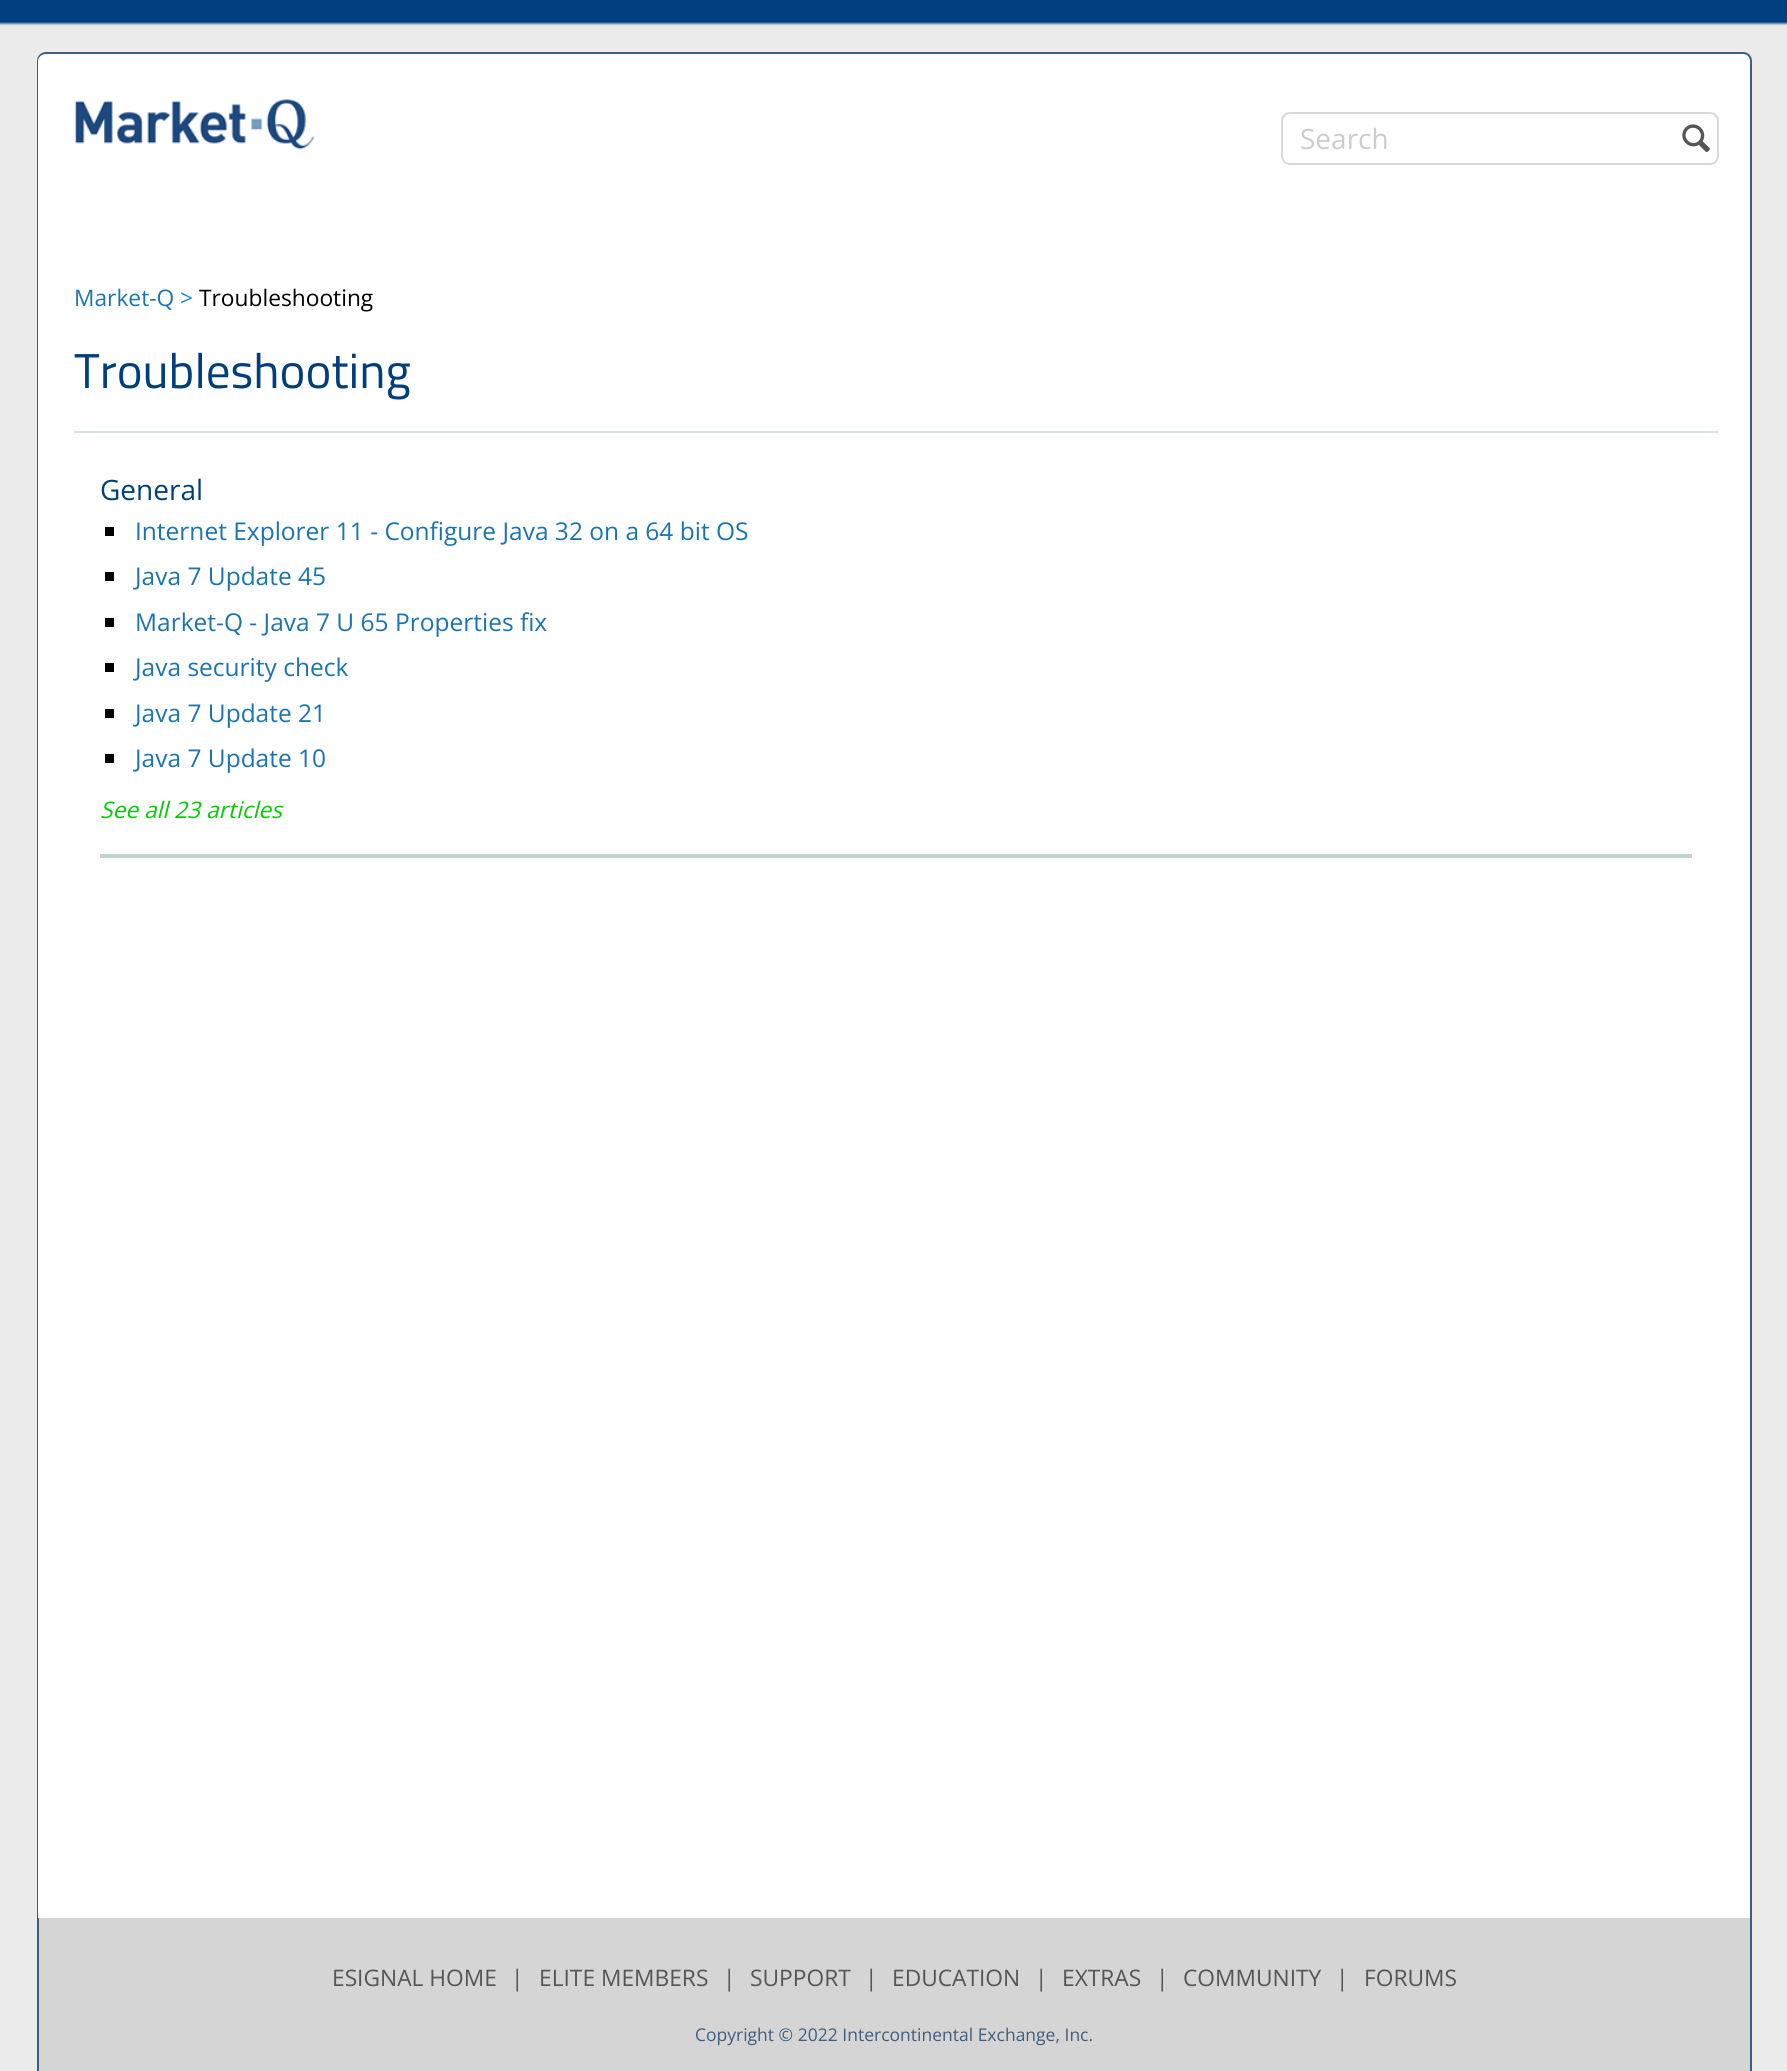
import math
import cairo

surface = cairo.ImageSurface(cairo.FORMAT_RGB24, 1787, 2071)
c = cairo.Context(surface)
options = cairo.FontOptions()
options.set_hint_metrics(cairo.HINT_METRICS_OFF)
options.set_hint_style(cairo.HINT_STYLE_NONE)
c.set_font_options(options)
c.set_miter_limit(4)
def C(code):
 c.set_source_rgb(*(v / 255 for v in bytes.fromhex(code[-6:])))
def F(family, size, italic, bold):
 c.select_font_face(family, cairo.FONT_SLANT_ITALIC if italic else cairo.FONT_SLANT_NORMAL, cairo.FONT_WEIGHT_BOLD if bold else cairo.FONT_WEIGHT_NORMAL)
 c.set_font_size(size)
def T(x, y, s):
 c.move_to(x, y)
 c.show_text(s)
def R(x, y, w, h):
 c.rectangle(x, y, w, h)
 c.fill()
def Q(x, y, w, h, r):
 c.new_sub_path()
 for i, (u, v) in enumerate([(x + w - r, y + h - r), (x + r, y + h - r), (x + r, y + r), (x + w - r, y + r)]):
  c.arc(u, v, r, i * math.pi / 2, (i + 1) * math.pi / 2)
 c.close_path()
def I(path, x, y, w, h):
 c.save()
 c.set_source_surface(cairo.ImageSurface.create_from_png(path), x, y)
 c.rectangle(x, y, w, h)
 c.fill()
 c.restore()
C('ebebeb')
c.paint()
I('1.png',0,0,1787,25)
C('ffffff')
c.new_path()
c.move_to(46,53)
c.line_to(1743,53)
c.curve_to(1748,53,1752,57,1752,62)
c.line_to(1752,1918)
c.line_to(37,1918)
c.line_to(37,62)
c.curve_to(37,57,41,53,46,53)
c.close_path()
c.fill()
C('3e5e7d')
c.set_fill_rule(cairo.FILL_RULE_EVEN_ODD)
c.new_path()
c.move_to(46,52)
c.line_to(1743,52)
c.curve_to(1748,52,1752,56,1752,61)
c.line_to(1752,1918)
c.line_to(37,1918)
c.line_to(37,61)
c.curve_to(37,56,41,52,46,52)
c.close_path()
c.move_to(46,54)
c.line_to(1743,54)
c.curve_to(1747,54,1750,57,1750,61)
c.line_to(1750,1918)
c.line_to(38,1918)
c.line_to(38,61)
c.curve_to(38,57,42,54,46,54)
c.close_path()
c.fill()
I('2.png',74,99,240,51)
Q(1282,113,436,51,8)
C('d9d9d9')
c.stroke()
F('Open Sans',28,0,0)
C('cccccc')
T(1300,149,'Search')
I('3.png',1682,124,28,29)
F('Open Sans',22.75,0,0)
C('1a74b0')
T(74,306,'Market-Q')
C('158ec2')
T(180,306,'>')
C('000000')
T(199,306,'Troubleshooting')
C('d9e2ec')
R(74,431,1645,2)
F('Titillium Web',49,0,0)
C('003e7e')
T(74,388,'Troubleshooting')
C('bfd4cd')
R(100,854,1592,4)
F('Open Sans',28,0,0)
C('003e7e')
T(100,500,'General')
C('000000')
R(105,527,9,9)
F('Open Sans',24.5,0,0)
C('1a74b0')
T(135,540,'Internet Explorer 11 - Configure Java 32 on a 64 bit OS')
C('000000')
R(105,572,9,9)
C('1a74b0')
T(135,585,'Java 7 Update 45')
C('000000')
R(105,618,9,9)
C('1a74b0')
T(135,631,'Market-Q - Java 7 U 65 Properties fix')
C('000000')
R(105,663,9,9)
C('1a74b0')
T(135,676,'Java security check')
C('000000')
R(105,709,9,9)
C('1a74b0')
T(135,722,'Java 7 Update 21')
C('000000')
R(105,754,9,9)
C('1a74b0')
T(135,767,'Java 7 Update 10')
F('Open Sans',22.75,1,0)
C('00cc00')
T(100,818,'See all 23 articles')
C('d5d5d5')
R(39,1918,1711,153)
C('3e5e7d')
R(1750,1918,2,153)
R(37,1918,2,153)
F('Open Sans',22.75,0,0)
C('555555')
T(332,1986,'ESIGNAL HOME')
T(511,1986,'|')
T(539,1986,'ELITE MEMBERS')
T(723,1986,'|')
T(750,1986,'SUPPORT')
T(865,1986,'|')
T(892,1986,'EDUCATION')
T(1035,1986,'|')
T(1062,1986,'EXTRAS')
T(1156,1986,'|')
T(1183,1986,'COMMUNITY')
T(1336,1986,'|')
T(1364,1986,'FORUMS')
F('Open Sans',17.5,0,0)
C('3e5e7d')
T(695,2041,'Copyright © 2022 Intercontinental Exchange, Inc.')
surface.write_to_png('o.png')
